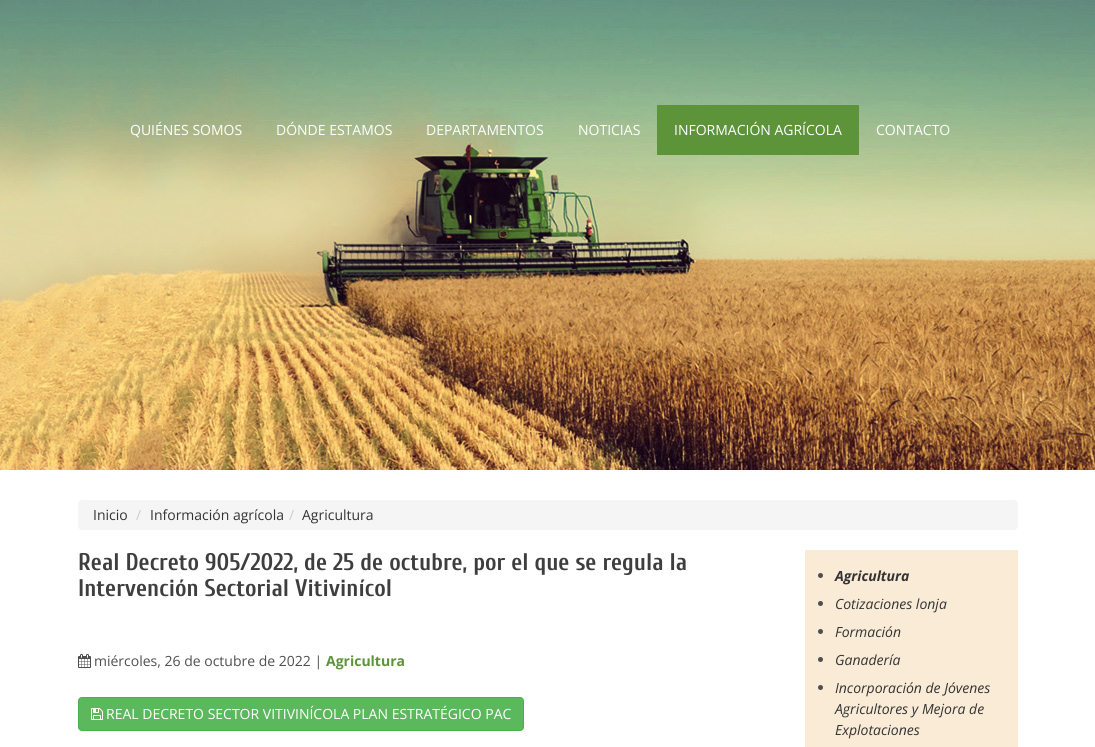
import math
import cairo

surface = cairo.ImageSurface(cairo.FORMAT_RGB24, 1095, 747)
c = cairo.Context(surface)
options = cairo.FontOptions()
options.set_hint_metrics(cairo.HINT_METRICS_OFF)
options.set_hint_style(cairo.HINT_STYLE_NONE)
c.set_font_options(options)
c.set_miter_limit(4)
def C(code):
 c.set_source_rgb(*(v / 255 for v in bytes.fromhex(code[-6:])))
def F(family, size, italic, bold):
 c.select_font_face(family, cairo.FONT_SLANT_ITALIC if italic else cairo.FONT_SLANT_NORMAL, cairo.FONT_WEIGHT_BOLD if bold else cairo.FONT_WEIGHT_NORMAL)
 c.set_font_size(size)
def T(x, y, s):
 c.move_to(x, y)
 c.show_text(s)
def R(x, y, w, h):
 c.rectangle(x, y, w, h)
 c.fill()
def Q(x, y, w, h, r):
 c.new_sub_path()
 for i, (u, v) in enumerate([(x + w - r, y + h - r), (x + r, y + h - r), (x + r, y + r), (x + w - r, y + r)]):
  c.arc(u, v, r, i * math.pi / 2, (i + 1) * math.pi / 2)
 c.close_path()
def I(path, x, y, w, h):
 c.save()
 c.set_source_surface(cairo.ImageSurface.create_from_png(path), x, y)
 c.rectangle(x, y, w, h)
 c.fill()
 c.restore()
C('ffffff')
c.paint()
I('1.png',0,0,1095,470)
F('Open Sans',14,0,0)
C('ffffff')
T(130,135,'QUIÉNES SOMOS')
T(276,135,'DÓNDE ESTAMOS')
T(426,135,'DEPARTAMENTOS')
T(578,135,'NOTICIAS')
C('5d9339')
R(657,105,202,50)
C('ffffff')
T(674,135,'INFORMACIÓN AGRÍCOLA')
T(876,135,'CONTACTO')
C('f5f5f5')
Q(78,500,940,30,4)
c.fill()
C('333333')
T(93,520,'Inicio')
C('cccccc')
T(136,520,'/')
C('333333')
T(150,520,'Información agrícola')
C('cccccc')
T(289,520,'/')
C('333333')
T(302,520,'Agricultura')
F('Cuprum',24,0,1)
C('3e3e3e')
T(78,570,'Real Decreto 905/2022, de 25 de octubre, por el que se regula la')
T(78,596,'Intervención Sectorial Vitivinícol')
I('2.png',78,654,13,14)
F('Open Sans',14,0,0)
C('4e4f4f')
T(94,666,'miércoles, 26 de octubre de 2022 |')
F('Open Sans',14,0,1)
C('5d9339')
T(326,666,'Agricultura')
C('5cb85c')
Q(78.5,697.5,445,33,3.5)
c.fill_preserve()
C('4cae4c')
c.set_line_width(1)
c.stroke()
I('3.png',91,708,12,12)
F('Open Sans',14,0,0)
C('ffffff')
T(106,719,'REAL DECRETO SECTOR VITIVINÍCOLA PLAN ESTRATÉGICO PAC')
C('faebd7')
R(805,550,213,197)
C('4e4f4f')
c.new_path()
c.arc(820.5,575.5,2.5,0,2 * math.pi)
c.fill()
F('Open Sans',14,1,1)
C('333333')
T(835,581,'Agricultura')
C('4e4f4f')
c.new_path()
c.arc(820.5,603.5,2.5,0,2 * math.pi)
c.fill()
F('Open Sans',14,1,0)
C('333333')
T(835,609,'Cotizaciones lonja')
C('4e4f4f')
c.new_path()
c.arc(820.5,631.5,2.5,0,2 * math.pi)
c.fill()
C('333333')
T(835,637,'Formación')
C('4e4f4f')
c.new_path()
c.arc(820.5,659.5,2.5,0,2 * math.pi)
c.fill()
C('333333')
T(835,665,'Ganadería')
C('4e4f4f')
c.new_path()
c.arc(820.5,687.5,2.5,0,2 * math.pi)
c.fill()
C('333333')
T(835,693,'Incorporación de Jóvenes')
T(835,714,'Agricultores y Mejora de')
T(835,735,'Explotaciones')
surface.write_to_png('o.png')
